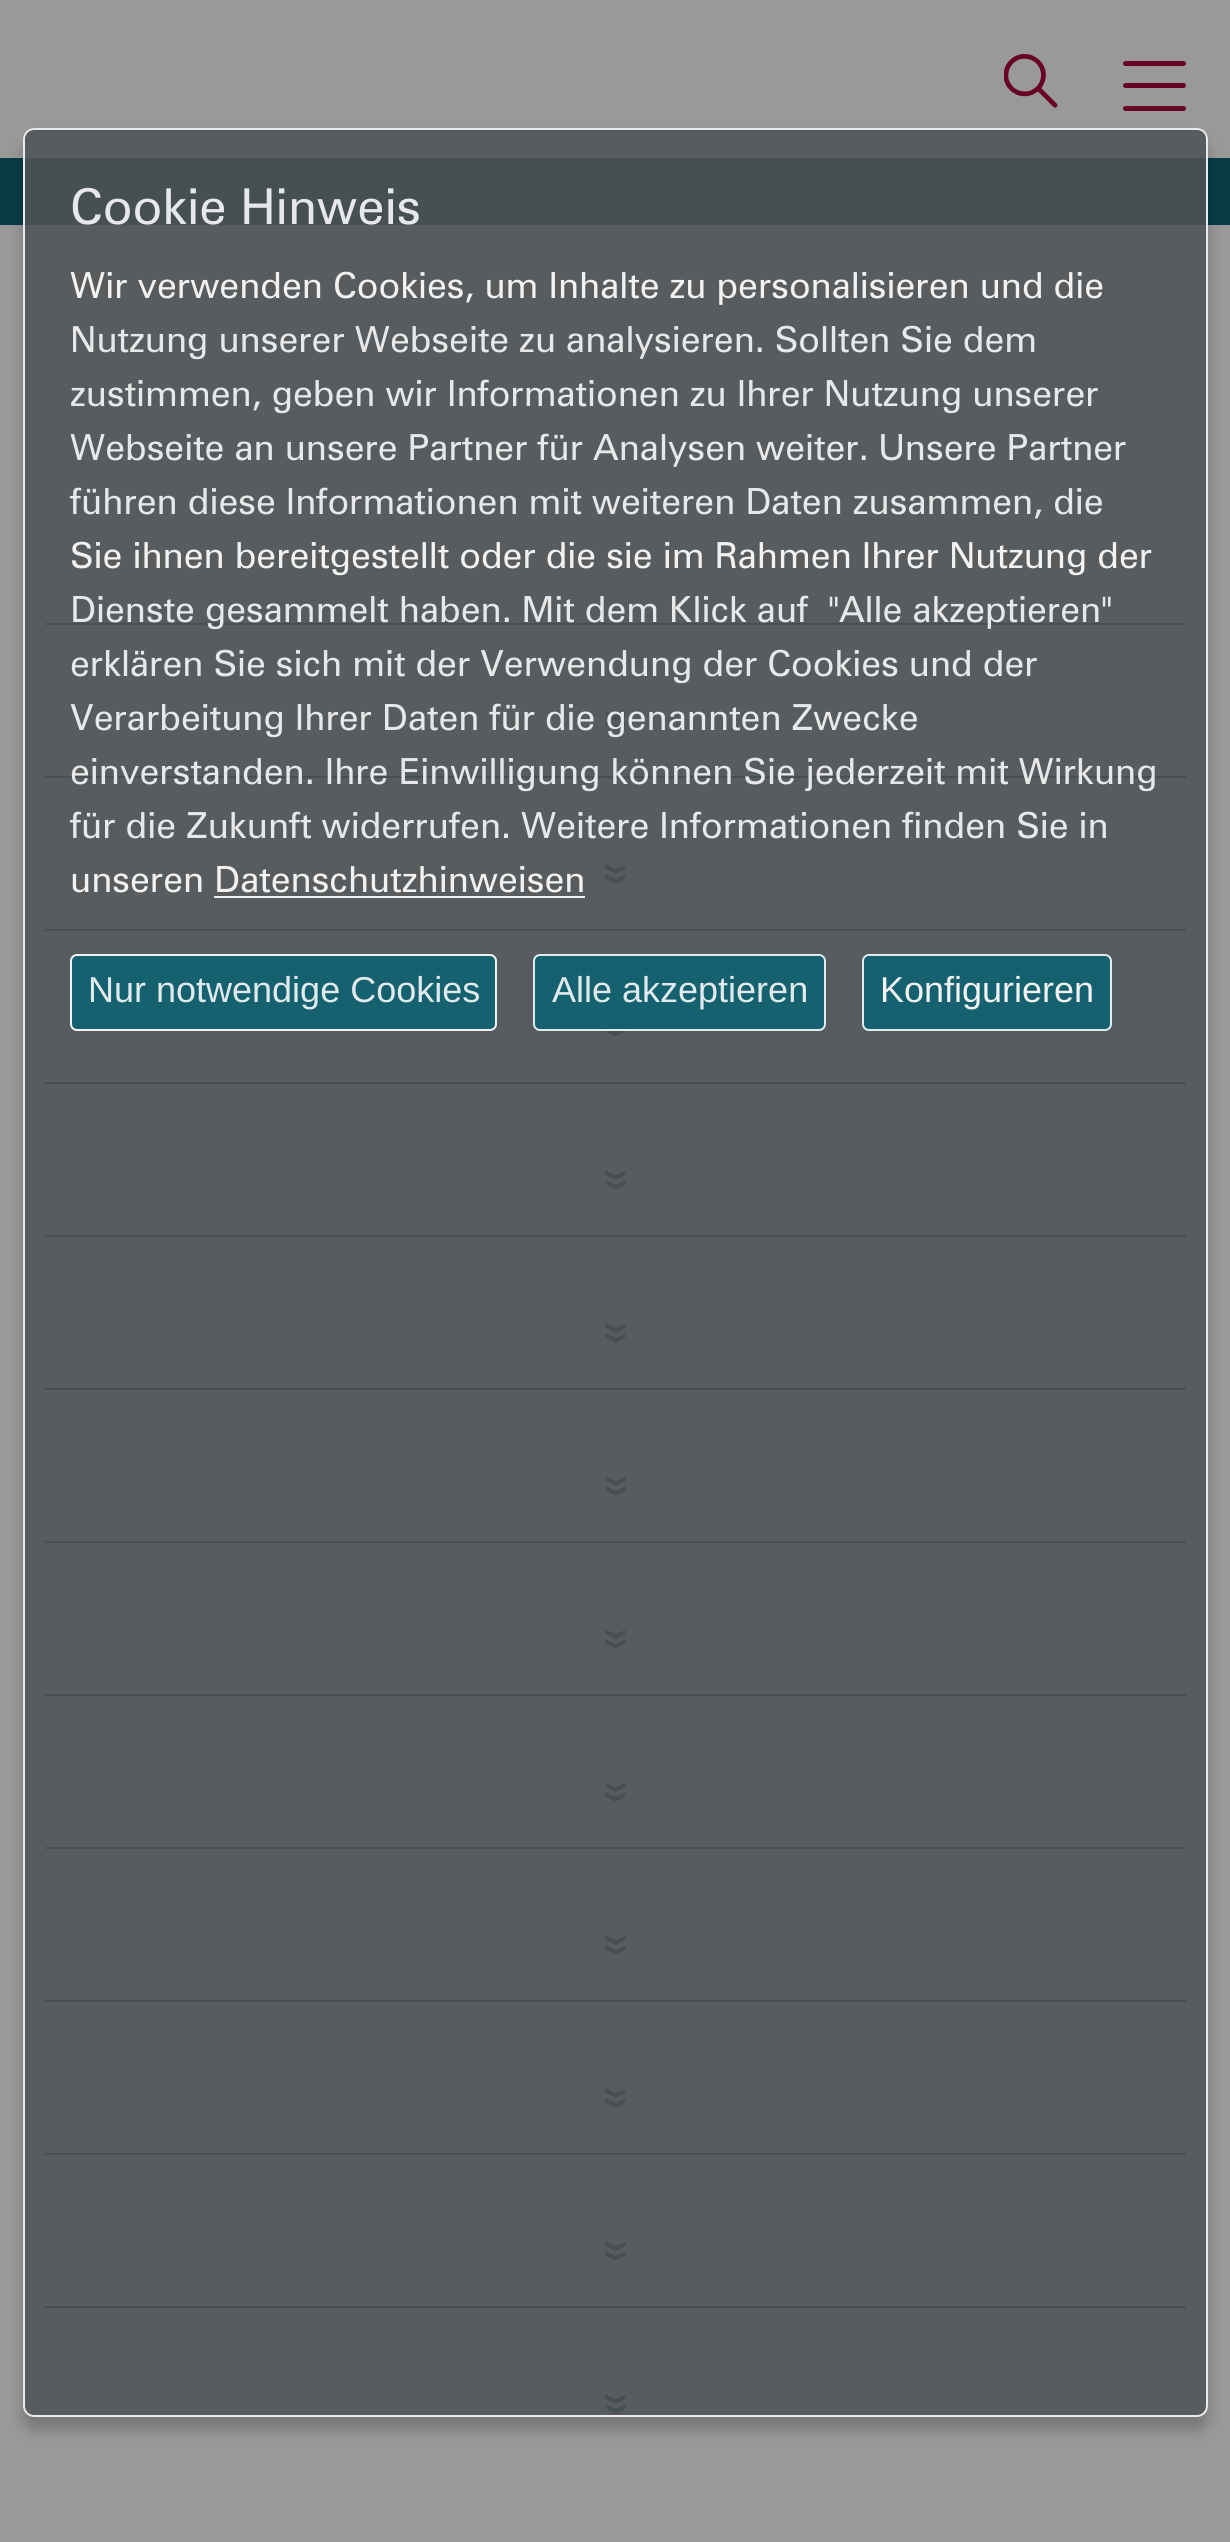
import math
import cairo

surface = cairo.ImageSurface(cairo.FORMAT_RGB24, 1230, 2542)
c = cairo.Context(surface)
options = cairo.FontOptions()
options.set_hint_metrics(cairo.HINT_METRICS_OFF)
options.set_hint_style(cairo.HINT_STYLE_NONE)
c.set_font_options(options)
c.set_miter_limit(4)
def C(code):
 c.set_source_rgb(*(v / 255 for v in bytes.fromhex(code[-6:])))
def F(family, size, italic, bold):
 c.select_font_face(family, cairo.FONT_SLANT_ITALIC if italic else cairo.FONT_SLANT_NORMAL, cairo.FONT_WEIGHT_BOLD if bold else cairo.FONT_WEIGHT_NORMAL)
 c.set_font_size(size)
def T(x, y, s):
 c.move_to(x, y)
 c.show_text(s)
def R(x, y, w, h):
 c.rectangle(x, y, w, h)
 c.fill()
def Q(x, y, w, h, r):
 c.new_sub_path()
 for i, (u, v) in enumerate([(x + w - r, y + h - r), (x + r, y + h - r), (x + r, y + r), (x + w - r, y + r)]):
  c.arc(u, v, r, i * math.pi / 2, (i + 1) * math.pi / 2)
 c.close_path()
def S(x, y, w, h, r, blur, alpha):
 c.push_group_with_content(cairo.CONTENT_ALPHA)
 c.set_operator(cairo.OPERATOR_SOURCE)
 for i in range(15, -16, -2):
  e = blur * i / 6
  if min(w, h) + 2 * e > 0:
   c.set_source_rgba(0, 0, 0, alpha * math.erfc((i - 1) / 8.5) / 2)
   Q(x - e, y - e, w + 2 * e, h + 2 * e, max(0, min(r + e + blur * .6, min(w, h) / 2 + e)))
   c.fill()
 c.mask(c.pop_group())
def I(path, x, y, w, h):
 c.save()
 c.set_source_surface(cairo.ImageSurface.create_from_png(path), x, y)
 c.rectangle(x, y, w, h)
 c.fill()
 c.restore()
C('999999')
c.paint()
I('1.png',1004,54,54,54)
C('073b45')
R(0,158,1230,67)
C('680322')
Q(1123,61,63,5,2.5)
c.fill()
Q(1123,83,63,5,2.5)
c.fill()
Q(1123,106,63,5,2.5)
c.fill()
I('2.png',605,711,21,20)
C('073b45')
R(45,623,1141,2)
I('2.png',605,864,21,20)
R(45,776,1141,2)
I('2.png',605,1017,21,20)
R(45,929,1141,2)
I('2.png',605,1170,21,20)
R(45,1082,1141,2)
I('2.png',605,1323,21,20)
R(45,1235,1141,2)
I('2.png',605,1476,21,20)
R(45,1388,1141,2)
I('2.png',605,1629,21,20)
R(45,1541,1141,2)
I('2.png',605,1782,21,20)
R(45,1694,1141,2)
I('2.png',605,1935,21,20)
R(45,1847,1141,2)
I('2.png',605,2088,21,20)
R(45,2000,1141,2)
I('2.png',605,2241,21,20)
R(45,2153,1141,2)
I('2.png',605,2394,21,20)
R(45,2306,1141,2)
c.save()
c.set_fill_rule(cairo.FILL_RULE_EVEN_ODD)
c.new_path()
c.move_to(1,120)
c.line_to(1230,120)
c.line_to(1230,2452)
c.line_to(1,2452)
c.close_path()
c.move_to(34,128)
c.line_to(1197,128)
c.curve_to(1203,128,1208,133,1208,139)
c.line_to(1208,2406)
c.curve_to(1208,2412,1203,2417,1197,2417)
c.line_to(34,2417)
c.curve_to(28,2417,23,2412,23,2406)
c.line_to(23,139)
c.curve_to(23,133,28,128,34,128)
c.close_path()
c.clip()
C('000000')
S(23,142,1185,2288,11,7,.22)
c.restore()
c.set_source_rgba(0.31,0.325,0.333,0.87)
Q(23,128,1185,2289,11)
c.fill()
Q(24,129,1183,2287,10)
c.set_source_rgba(1,1,1,0.87)
c.stroke()
F('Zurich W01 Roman',49.5,0,0)
C('e7e8e9')
T(70,224,'Cookie Hinweis')
F('Zurich W01 Roman',36,0,0)
C('f2f2f2')
T(70,298,'Wir verwenden Cookies, um Inhalte zu personalisieren und die')
C('e7e8e9')
T(70,352,'Nutzung unserer Webseite zu analysieren. Sollten Sie dem')
T(70,406,'zustimmen, geben wir Informationen zu Ihrer Nutzung unserer')
T(70,460,'Webseite an unsere Partner für Analysen weiter. Unsere Partner')
T(70,514,'führen diese Informationen mit weiteren Daten zusammen, die')
C('f2f2f2')
T(70,568,'Sie ihnen bereitgestellt oder die sie im Rahmen Ihrer Nutzung der')
C('e7e8e9')
T(70,622,'Dienste gesammelt haben. Mit dem Klick auf  "Alle akzeptieren"')
T(70,676,'erklären Sie sich mit der Verwendung der Cookies und der')
T(70,730,'Verarbeitung Ihrer Daten für die genannten Zwecke')
T(70,784,'einverstanden. Ihre Einwilligung können Sie jederzeit mit Wirkung')
T(70,838,'für die Zukunft widerrufen. Weitere Informationen finden Sie in')
C('f2f2f2')
T(70,892,'unseren Datenschutzhinweisen')
R(214,896,371,2)
c.set_source_rgba(0.043,0.384,0.451,0.87)
Q(71,955,425,75,6)
c.fill_preserve()
C('f2f2f2')
c.stroke()
F('Liberation Sans',36,0,0)
C('e1eaec')
T(88,1002,'Nur notwendige Cookies')
c.set_source_rgba(0.043,0.384,0.451,0.87)
Q(533,954,293,77,7)
c.fill()
Q(534,955,291,75,6)
c.set_source_rgba(1,1,1,0.87)
c.stroke()
C('e1eaec')
T(552,1002,'Alle akzeptieren')
c.set_source_rgba(0.043,0.384,0.451,0.87)
Q(862,954,250,77,7)
c.fill()
Q(863,955,248,75,6)
c.set_source_rgba(1,1,1,0.87)
c.stroke()
C('f2f2f2')
T(880,1002,'Konfigurieren')
surface.write_to_png('o.png')
